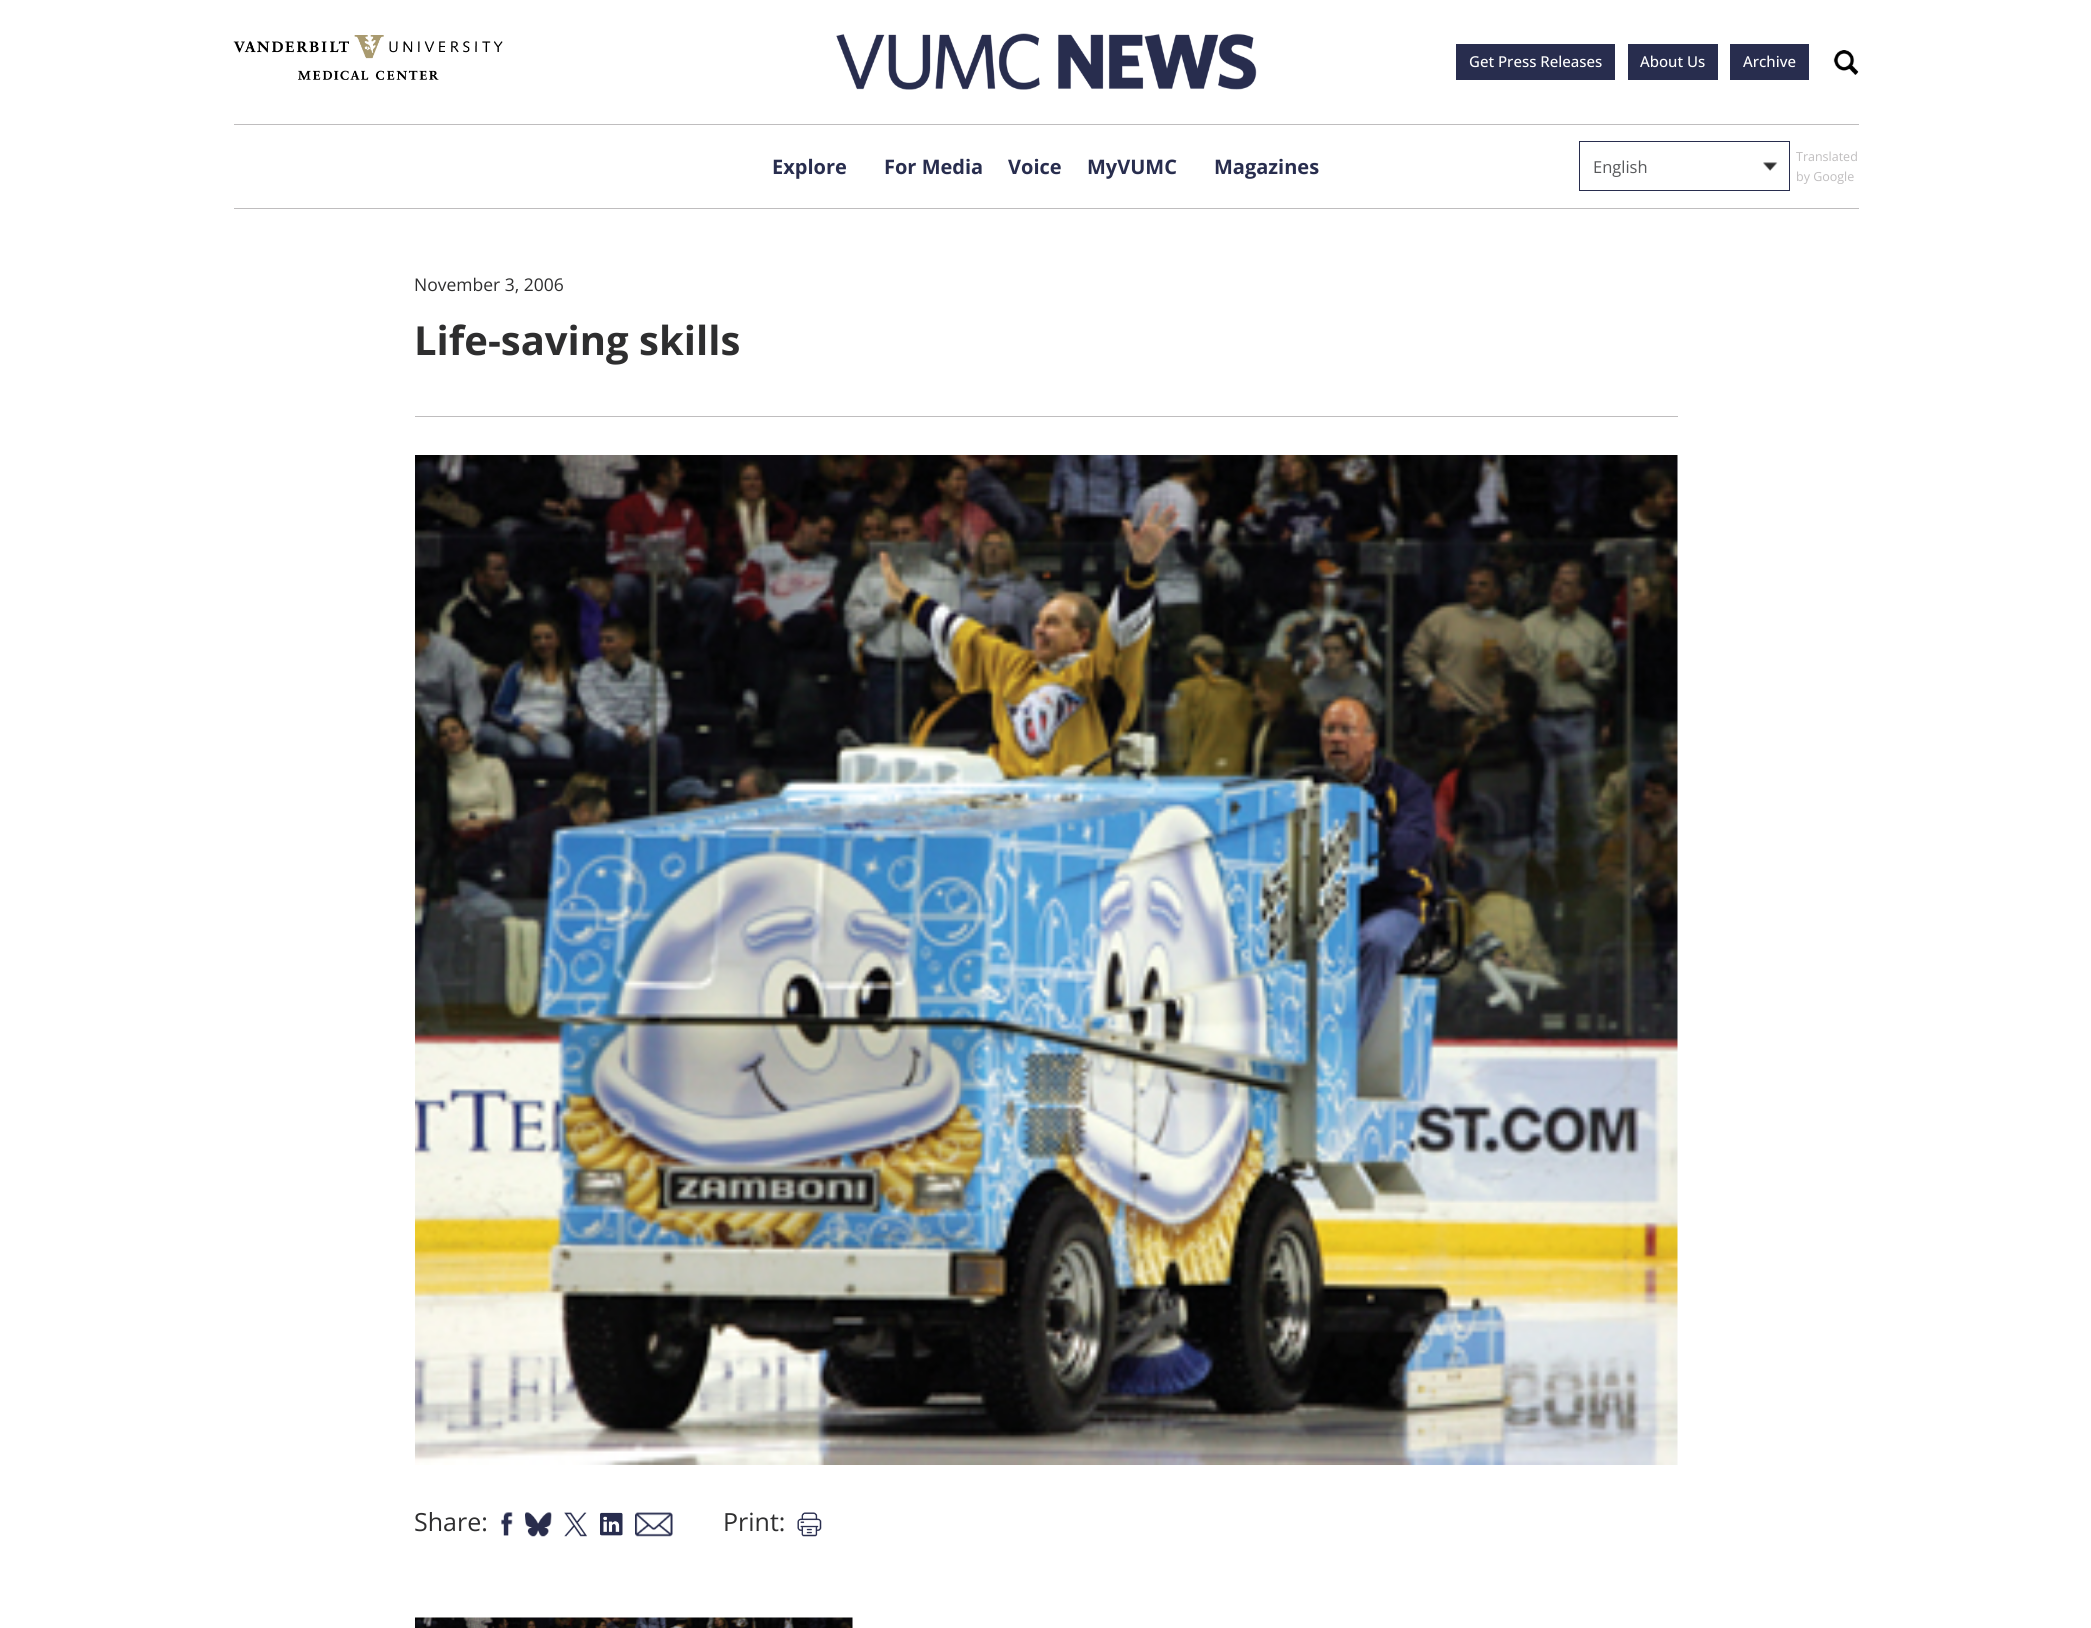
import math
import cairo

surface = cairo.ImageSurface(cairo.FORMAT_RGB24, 2091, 1628)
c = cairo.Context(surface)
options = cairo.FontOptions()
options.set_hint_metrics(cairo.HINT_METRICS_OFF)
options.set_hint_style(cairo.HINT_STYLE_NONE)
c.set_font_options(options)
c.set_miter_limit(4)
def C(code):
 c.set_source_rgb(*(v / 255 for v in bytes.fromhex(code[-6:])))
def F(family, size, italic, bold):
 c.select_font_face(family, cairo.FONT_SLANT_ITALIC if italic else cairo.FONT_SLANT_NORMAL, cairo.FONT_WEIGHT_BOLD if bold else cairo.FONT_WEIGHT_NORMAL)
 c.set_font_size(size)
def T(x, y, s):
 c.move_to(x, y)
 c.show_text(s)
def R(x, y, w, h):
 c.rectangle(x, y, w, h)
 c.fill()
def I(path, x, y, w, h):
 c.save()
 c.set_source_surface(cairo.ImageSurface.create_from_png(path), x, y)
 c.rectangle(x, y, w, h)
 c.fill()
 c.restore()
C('ffffff')
c.paint()
C('bfbdbe')
R(234,124,1625,1)
I('1.png',233,35,270,45)
I('2.png',836,33,421,57)
C('282d4e')
R(1456,44,159,36)
F('Open Sans Medium',15,0,0)
C('ffffff')
T(1469,67,'Get Press Releases')
C('282d4e')
R(1628,44,90,36)
C('ffffff')
T(1640,67,'About Us')
C('282d4e')
R(1730,44,79,36)
C('ffffff')
T(1743,67,'Archive')
I('3.png',1833,50,26,25)
C('bfbdbe')
R(234,208,1625,1)
F('Open Sans',20,0,1)
C('282d4e')
T(772,174,'Explore')
T(884,174,'For Media')
T(1008,174,'Voice')
T(1087,174,'MyVUMC')
T(1214,174,'Magazines')
c.rectangle(1579.5,141.5,210,49)
c.set_line_width(1)
c.stroke()
F('Open Sans',16.5,0,0)
C('58595b')
T(1593,173,'English')
I('4.png',1763,162,15,9)
F('Open Sans',12.5,0,0)
C('bfbdbe')
T(1796,161,'Translated')
T(1796,181,'by Google')
R(415,416,1263,1)
F('Open Sans',17.5,0,0)
C('2e2e2f')
T(414,291,'November 3, 2006')
F('Open Sans',40,0,1)
T(414,355,'Life-saving skills')
I('5.png',415,455,1263,1010)
F('Open Sans',25,0,0)
T(414,1531,'Share:')
I('6.png',501,1512,12,24)
I('7.png',525,1512,27,25)
I('8.png',564,1512,23,25)
I('9.png',600,1512,23,24)
I('10.png',635,1512,38,25)
T(723,1531,'Print:')
I('11.png',797,1512,25,25)
I('12.png',415,1617,438,11)
surface.write_to_png('o.png')
